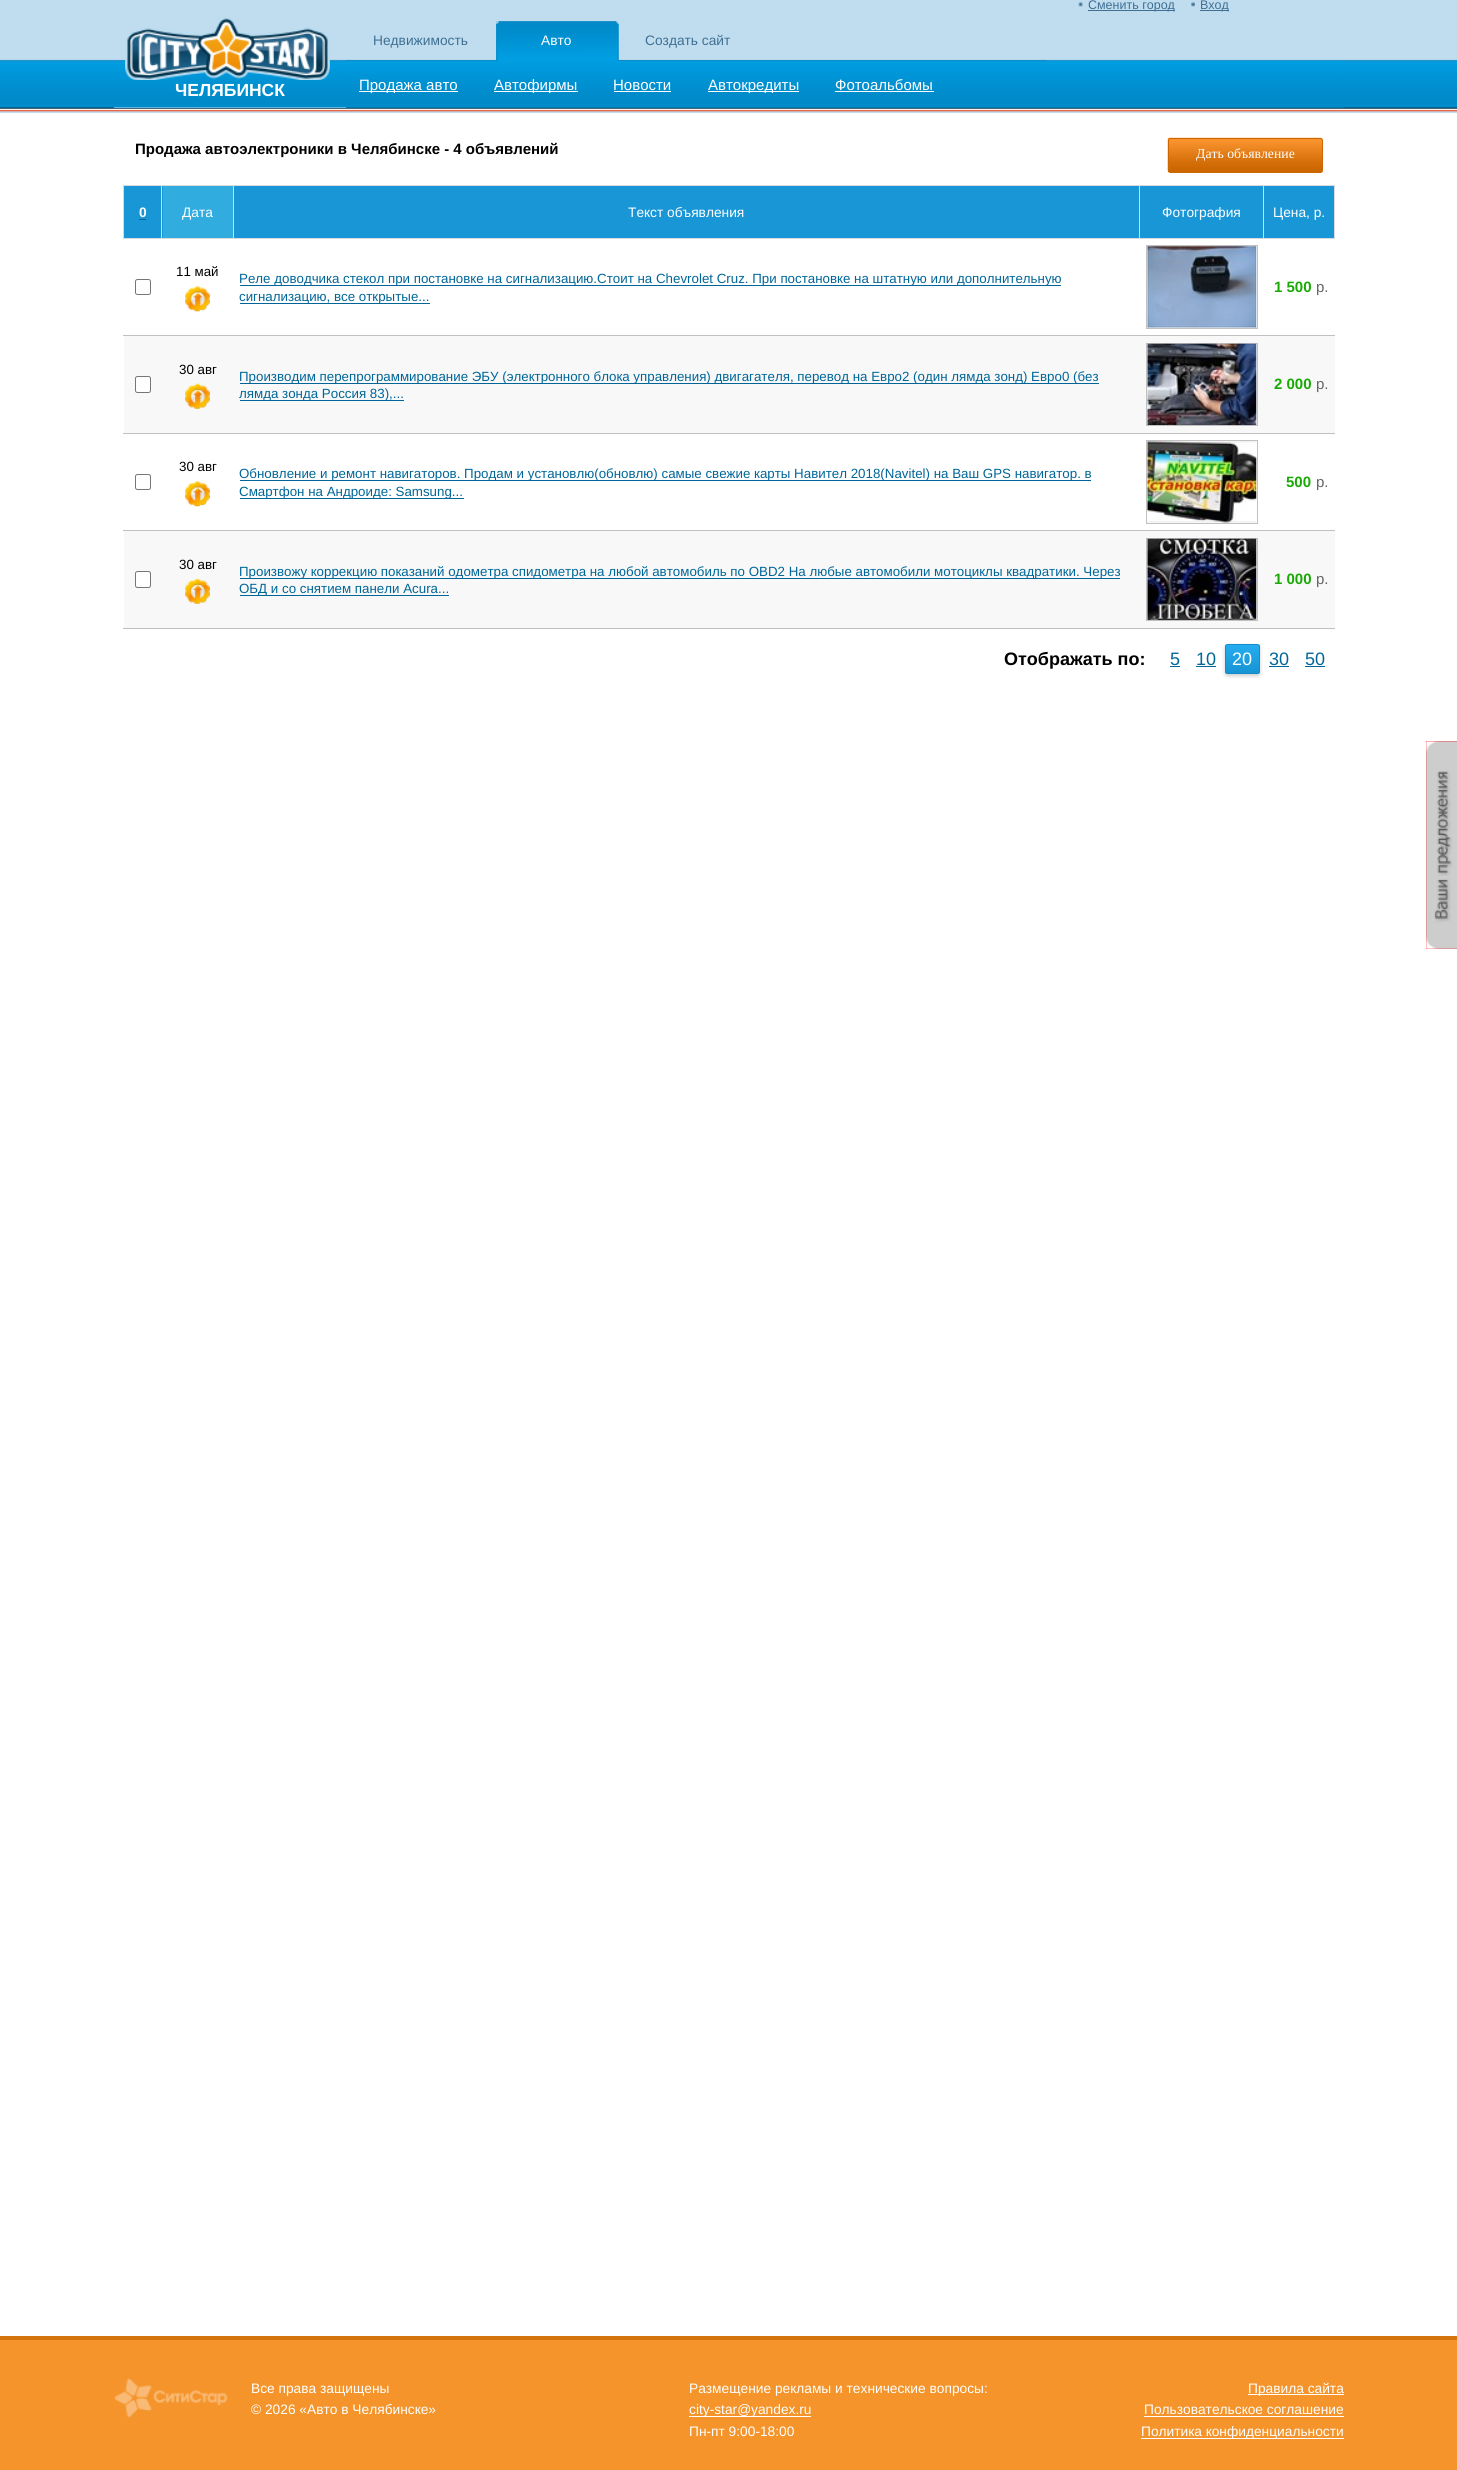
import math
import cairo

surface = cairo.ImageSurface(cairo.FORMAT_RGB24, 1457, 2470)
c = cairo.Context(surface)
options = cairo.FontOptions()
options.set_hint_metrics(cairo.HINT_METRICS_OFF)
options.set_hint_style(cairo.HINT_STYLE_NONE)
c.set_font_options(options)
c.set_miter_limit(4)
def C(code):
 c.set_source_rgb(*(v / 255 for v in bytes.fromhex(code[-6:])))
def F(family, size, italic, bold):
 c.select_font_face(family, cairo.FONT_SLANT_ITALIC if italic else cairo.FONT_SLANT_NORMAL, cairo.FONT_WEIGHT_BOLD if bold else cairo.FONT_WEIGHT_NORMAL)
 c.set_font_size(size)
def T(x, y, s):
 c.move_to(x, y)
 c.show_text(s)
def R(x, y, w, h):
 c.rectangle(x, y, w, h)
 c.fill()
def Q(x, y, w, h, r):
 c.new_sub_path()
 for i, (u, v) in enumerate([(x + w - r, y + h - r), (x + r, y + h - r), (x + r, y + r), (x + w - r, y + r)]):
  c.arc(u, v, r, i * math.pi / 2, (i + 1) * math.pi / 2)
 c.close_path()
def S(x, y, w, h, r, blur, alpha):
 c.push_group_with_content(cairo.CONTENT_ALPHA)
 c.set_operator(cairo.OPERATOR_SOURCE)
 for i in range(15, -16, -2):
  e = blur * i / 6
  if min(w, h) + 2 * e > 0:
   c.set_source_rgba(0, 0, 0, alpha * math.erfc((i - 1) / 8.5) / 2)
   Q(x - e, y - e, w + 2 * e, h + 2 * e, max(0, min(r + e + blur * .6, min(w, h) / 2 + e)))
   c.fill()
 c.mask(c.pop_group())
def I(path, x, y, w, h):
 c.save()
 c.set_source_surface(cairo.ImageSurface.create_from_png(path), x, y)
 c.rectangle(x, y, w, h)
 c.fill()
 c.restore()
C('ffffff')
c.paint()
C('c0ddef')
R(0,0,1457,113)
I('1.png',0,59,1457,53)
R(114,59,232,49)
I('2.png',113,59,234,49)
I('3.png',125,17,205,63)
F('Liberation Sans',17.5,0,1)
C('ffffff')
T(175,96,'ЧЕЛЯБИНСК')
I('4.png',1078,2,5,5)
C('406f93')
R(1088,10,87,1)
F('Liberation Sans',12.5,0,0)
T(1088,9,'Сменить город')
I('5.png',1191,2,4,5)
R(1200,10,29,1)
T(1200,9,'Вход')
I('6.png',346,60,701,2)
F('Liberation Sans',13.75,0,0)
T(373,45,'Недвижимость')
I('7.png',496,21,123,41)
I('8.png',496,21,121,40)
C('ffffff')
T(541,45,'Авто')
C('406f93')
T(645,45,'Создать сайт')
I('9.png',346,61,998,47)
C('ffffff')
R(359,91,99,1)
F('Liberation Sans',15,0,0)
T(359,90,'Продажа авто')
R(494,91,84,1)
T(494,90,'Автофирмы')
T(613,90,'Новости')
R(614,91,57,1)
R(708,91,91,1)
T(708,90,'Автокредиты')
T(835,90,'Фотоальбомы')
R(835,91,99,1)
F('Liberation Sans',15,0,1)
C('000000')
T(135,154,'Продажа автоэлектроники в Челябинске - 4 объявлений')
I('10.png',1167,137,156,36)
Q(1168.5,138.5,154,34,2)
C('cc6600')
c.set_line_width(1)
c.stroke()
F('Liberation Serif',13.75,0,0)
C('ffffff')
T(1196,158,'Дать объявление')
C('1996d6')
R(124,186,39,52)
C('d9dae0')
R(1263,185,72,1)
R(1334,185,1,54)
R(1263,238,72,1)
R(1263,185,1,54)
R(1139,185,125,1)
R(1139,238,125,1)
R(1139,185,1,54)
R(233,185,907,1)
R(233,238,907,1)
R(233,185,1,54)
R(161,185,73,1)
R(161,238,73,1)
R(161,185,1,54)
R(123,185,40,1)
R(123,238,40,1)
R(123,185,1,54)
F('Liberation Sans',13.75,0,1)
C('ffffff')
T(139,217,'0')
C('006699')
R(139,219,7,1)
C('30acdf')
R(163,186,70,52)
F('Liberation Sans',13.75,0,0)
C('ffffff')
T(182,217,'Дата')
C('1996d6')
R(234,186,905,52)
C('ffffff')
T(628,217,'Текст объявления')
C('1996d6')
R(1140,186,123,52)
C('ffffff')
T(1162,217,'Фотография')
C('1996d6')
R(1264,186,70,52)
C('ffffff')
T(1273,217,'Цена, р.')
F('Liberation Sans',13.33,0,0)
C('000000')
T(176,276,'11 май')
I('11.png',185,286,25,26)
c.rectangle(1146.5,245.5,111,83)
C('c0c0c0')
c.stroke()
I('12.png',1147,246,110,82)
Q(135.5,279.5,15,15,2)
C('767676')
c.stroke()
C('006699')
R(240,285,821,1)
T(239,283,'Реле доводчика стекол при постановке на сигнализацию.Стоит на Сhevrolet Cruz. При постановке на штатную или дополнительную')
R(240,303,190,1)
T(239,301,'сигнализацию, все открытые...')
C('c0c0c0')
R(123,335,1212,1)
F('Liberation Sans',15,0,1)
C('1aaa06')
T(1274,292,'1 500')
F('Liberation Sans',15,0,0)
C('656565')
T(1316,292,'р.')
C('f8f8f8')
R(124,336,1211,97)
C('ffffff')
Q(135.5,376.5,15,16,2)
c.fill_preserve()
C('767676')
c.stroke()
F('Liberation Sans',13.33,0,0)
C('000000')
T(179,374,'30 авг')
I('13.png',185,383,25,26)
c.rectangle(1146.5,343.5,111,82)
C('c0c0c0')
c.stroke()
I('14.png',1147,343,110,82)
C('006699')
R(240,383,859,1)
T(239,381,'Производим перепрограммирование ЭБУ (электронного блока управления) двигагателя, перевод на Евро2 (один лямда зонд) Евро0 (без')
R(240,400,164,1)
T(239,398,'лямда зонда Россия 83),...')
C('c0c0c0')
R(123,433,1212,1)
F('Liberation Sans',15,0,1)
C('1aaa06')
T(1274,389,'2 000')
F('Liberation Sans',15,0,0)
C('656565')
T(1316,389,'р.')
F('Liberation Sans',13.33,0,0)
C('000000')
T(179,471,'30 авг')
I('11.png',185,481,25,26)
c.rectangle(1146.5,440.5,111,83)
C('c0c0c0')
c.stroke()
I('15.png',1147,441,110,82)
Q(135.5,474.5,15,15,2)
C('767676')
c.stroke()
C('006699')
R(240,480,851,1)
T(239,478,'Обновление и ремонт навигаторов. Продам и установлю(обновлю) самые свежие карты Навител 2018(Navitel) на Ваш GPS навигатор. в')
R(240,498,224,1)
T(239,496,'Смартфон на Андроиде: Samsung...')
C('c0c0c0')
R(123,530,1212,1)
F('Liberation Sans',15,0,1)
C('1aaa06')
T(1286,487,'500')
F('Liberation Sans',15,0,0)
C('656565')
T(1316,487,'р.')
C('f8f8f8')
R(124,531,1211,97)
C('ffffff')
Q(135.5,571.5,15,16,2)
c.fill_preserve()
C('767676')
c.stroke()
F('Liberation Sans',13.33,0,0)
C('000000')
T(179,569,'30 авг')
I('13.png',185,578,25,26)
c.rectangle(1146.5,538.5,111,82)
C('c0c0c0')
c.stroke()
I('16.png',1147,538,110,82)
C('006699')
R(240,578,880,1)
T(239,576,'Произвожу коррекцию показаний одометра спидометра на любой автомобиль по OBD2 На любые автомобили мотоциклы квадратики. Через')
R(240,595,209,1)
T(239,593,'ОБД и со снятием панели Acura...')
C('c0c0c0')
R(123,628,1212,1)
F('Liberation Sans',15,0,1)
C('1aaa06')
T(1274,584,'1 000')
F('Liberation Sans',15,0,0)
C('656565')
T(1316,584,'р.')
F('Liberation Sans',18,0,1)
C('000000')
T(1004,665,'Отображать по:')
F('Liberation Sans',18,0,0)
C('006699')
T(1170,665,'5')
R(1170,666,10,1)
T(1196,665,'10')
R(1196,666,20,1)
C('000000')
S(1225,646,35,30,2.5,2,.2)
I('17.png',1225,645,35,29)
Q(1225.5,644.5,34,29,2)
C('128dc9')
c.stroke()
C('ffffff')
T(1232,665,'20')
C('006699')
T(1269,665,'30')
R(1269,666,20,1)
T(1305,665,'50')
R(1305,666,20,1)
C('ff0000')
R(1426,741,31,208)
I('18.png',1426,741,31,208)
C('f4942a')
R(0,2340,1457,130)
C('d3740c')
R(0,2336,1457,4)
I('19.png',114,2378,114,40)
F('Liberation Sans',13.75,0,0)
C('ffffff')
T(251,2393,'Все права защищены')
T(251,2414,'© 2026 «Авто в Челябинске»')
T(689,2393,'Размещение рекламы и технические вопросы:')
R(689,2416,122,1)
T(689,2414,'city-star@yandex.ru')
T(689,2436,'Пн-пт 9:00-18:00')
R(1248,2394,96,1)
T(1248,2393,'Правила сайта')
T(1144,2414,'Пользовательское соглашение')
R(1144,2416,200,1)
R(1141,2438,203,1)
T(1141,2436,'Политика конфиденциальности')
surface.write_to_png('o.png')
